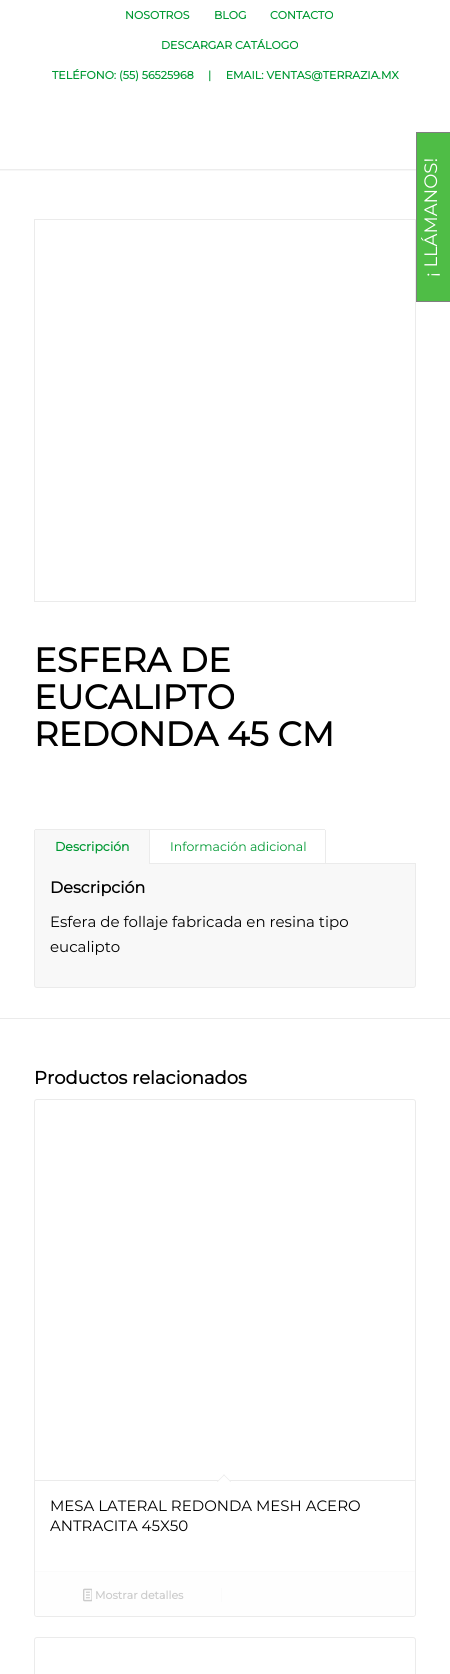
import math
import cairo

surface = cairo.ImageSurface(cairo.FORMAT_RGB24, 450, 1674)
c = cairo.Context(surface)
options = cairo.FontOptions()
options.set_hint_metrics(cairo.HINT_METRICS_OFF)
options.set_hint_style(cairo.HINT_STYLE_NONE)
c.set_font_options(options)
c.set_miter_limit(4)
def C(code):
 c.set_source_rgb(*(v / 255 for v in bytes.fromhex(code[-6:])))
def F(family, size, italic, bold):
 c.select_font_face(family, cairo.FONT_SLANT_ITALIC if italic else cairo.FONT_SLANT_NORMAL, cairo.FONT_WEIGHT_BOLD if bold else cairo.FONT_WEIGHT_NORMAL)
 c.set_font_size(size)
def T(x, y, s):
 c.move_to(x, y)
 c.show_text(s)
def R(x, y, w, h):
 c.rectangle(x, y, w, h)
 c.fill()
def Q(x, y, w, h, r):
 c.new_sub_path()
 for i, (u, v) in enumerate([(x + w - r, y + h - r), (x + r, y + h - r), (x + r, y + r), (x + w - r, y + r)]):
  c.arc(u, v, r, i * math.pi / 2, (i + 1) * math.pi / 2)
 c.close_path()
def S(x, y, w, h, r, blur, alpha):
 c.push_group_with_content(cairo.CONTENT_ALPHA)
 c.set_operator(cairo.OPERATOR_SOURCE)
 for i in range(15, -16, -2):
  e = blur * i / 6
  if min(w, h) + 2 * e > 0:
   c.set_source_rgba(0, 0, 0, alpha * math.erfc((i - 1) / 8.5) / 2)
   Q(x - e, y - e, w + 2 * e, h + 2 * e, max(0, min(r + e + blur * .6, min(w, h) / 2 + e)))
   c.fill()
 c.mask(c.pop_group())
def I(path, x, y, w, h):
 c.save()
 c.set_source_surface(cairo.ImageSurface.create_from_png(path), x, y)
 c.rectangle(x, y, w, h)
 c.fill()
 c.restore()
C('ffffff')
c.paint()
c.save()
c.rectangle(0,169,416,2)
c.clip()
C('000000')
S(-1,-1,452,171,0,1,.1)
c.restore()
F('Montserrat',11,0,1)
C('009933')
T(125,19,'NOSOTROS')
T(214,19,'BLOG')
T(270,19,'CONTACTO')
T(161,49,'DESCARGAR CATÁLOGO')
T(52,79,'TELÉFONO: (55) 56525968')
T(208,79,'|     EMAIL: VENTAS@TERRAZIA.MX')
c.rectangle(34.5,219.5,381,382)
C('ebebeb')
c.set_line_width(1)
c.stroke()
F('Montserrat',34,0,1)
C('000000')
T(34,672,'ESFERA DE')
T(34,709,'EUCALIPTO')
T(34,746,'REDONDA 45 CM')
C('f8f8f8')
c.new_path()
c.move_to(34.5,863.5)
c.line_to(415.5,863.5)
c.line_to(415.5,985)
c.curve_to(415.5,986.5,414.5,987.5,413,987.5)
c.line_to(37,987.5)
c.curve_to(35.5,987.5,34.5,986.5,34.5,985)
c.close_path()
c.fill_preserve()
C('ebebeb')
c.stroke()
C('f8f8f8')
c.new_path()
c.move_to(36,829)
c.line_to(150,829)
c.line_to(150,864)
c.line_to(34,864)
c.line_to(34,831)
c.curve_to(34,830,35,829,36,829)
c.close_path()
c.fill()
C('ebebeb')
R(35,829,115,1)
R(149,829,1,35)
R(34,830,1,34)
F('Montserrat',12.5,0,1)
C('009933')
T(55,851,'Descripción')
C('ebebeb')
R(149,829,176,1)
R(325,830,1,34)
F('Montserrat Thin',12.5,0,0)
C('009933')
T(170,851,'Información adicional')
F('Montserrat',16,0,1)
C('000000')
T(50,893,'Descripción')
F('Montserrat Thin',15,0,0)
T(50,927,'Esfera de follaje fabricada en resina tipo')
T(50,952,'eucalipto')
C('ebebeb')
R(0,1018,450,1)
F('Montserrat',18,0,1)
C('000000')
T(34,1084,'Productos relacionados')
Q(34.5,1099.5,381,517,2.5)
C('ebebeb')
c.stroke()
R(35,1480,380,1)
C('ffffff')
c.new_path()
c.move_to(224,1474.5)
c.line_to(231,1481.5)
c.line_to(224,1488.5)
c.line_to(217,1481.5)
c.close_path()
c.fill()
C('ebebeb')
c.new_path()
c.move_to(224,1474.5)
c.line_to(231,1481.5)
c.line_to(230.5,1482)
c.line_to(223.5,1475)
c.close_path()
c.fill()
c.new_path()
c.move_to(224,1474.5)
c.line_to(224.5,1475)
c.line_to(217.5,1482)
c.line_to(217,1481.5)
c.close_path()
c.fill()
F('Montserrat Thin',15,0,0)
C('000000')
T(50,1511,'MESA LATERAL REDONDA MESH ACERO')
T(50,1531,'ANTRACITA 45X50')
C('fefefe')
c.new_path()
c.move_to(35,1571)
c.line_to(415,1571)
c.line_to(415,1614)
c.curve_to(415,1615,414,1616,413,1616)
c.line_to(37,1616)
c.curve_to(36,1616,35,1615,35,1614)
c.close_path()
c.fill()
C('fbfbfb')
R(35,1571,380,1)
I('1.png',83,1588,9,14)
F('Montserrat',11,0,1)
C('cccccc')
T(95,1599,'Mostrar detalles')
C('fbfbfb')
R(221,1588,1,14)
Q(34.5,1637.5,381,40,2.5)
C('ebebeb')
c.stroke()
C('4fbd46')
R(417,133,33,168)
C('7f7f7f')
R(416,132,1,170)
R(416,132,34,1)
R(416,301,34,1)
F('Montserrat Thin',18,0,0)
C('ffffff')
c.save()
c.translate(437,277)
c.rotate(-90 * math.pi / 180)
T(0,0,'¡ LLÁMANOS!')
c.restore()
surface.write_to_png('o.png')
